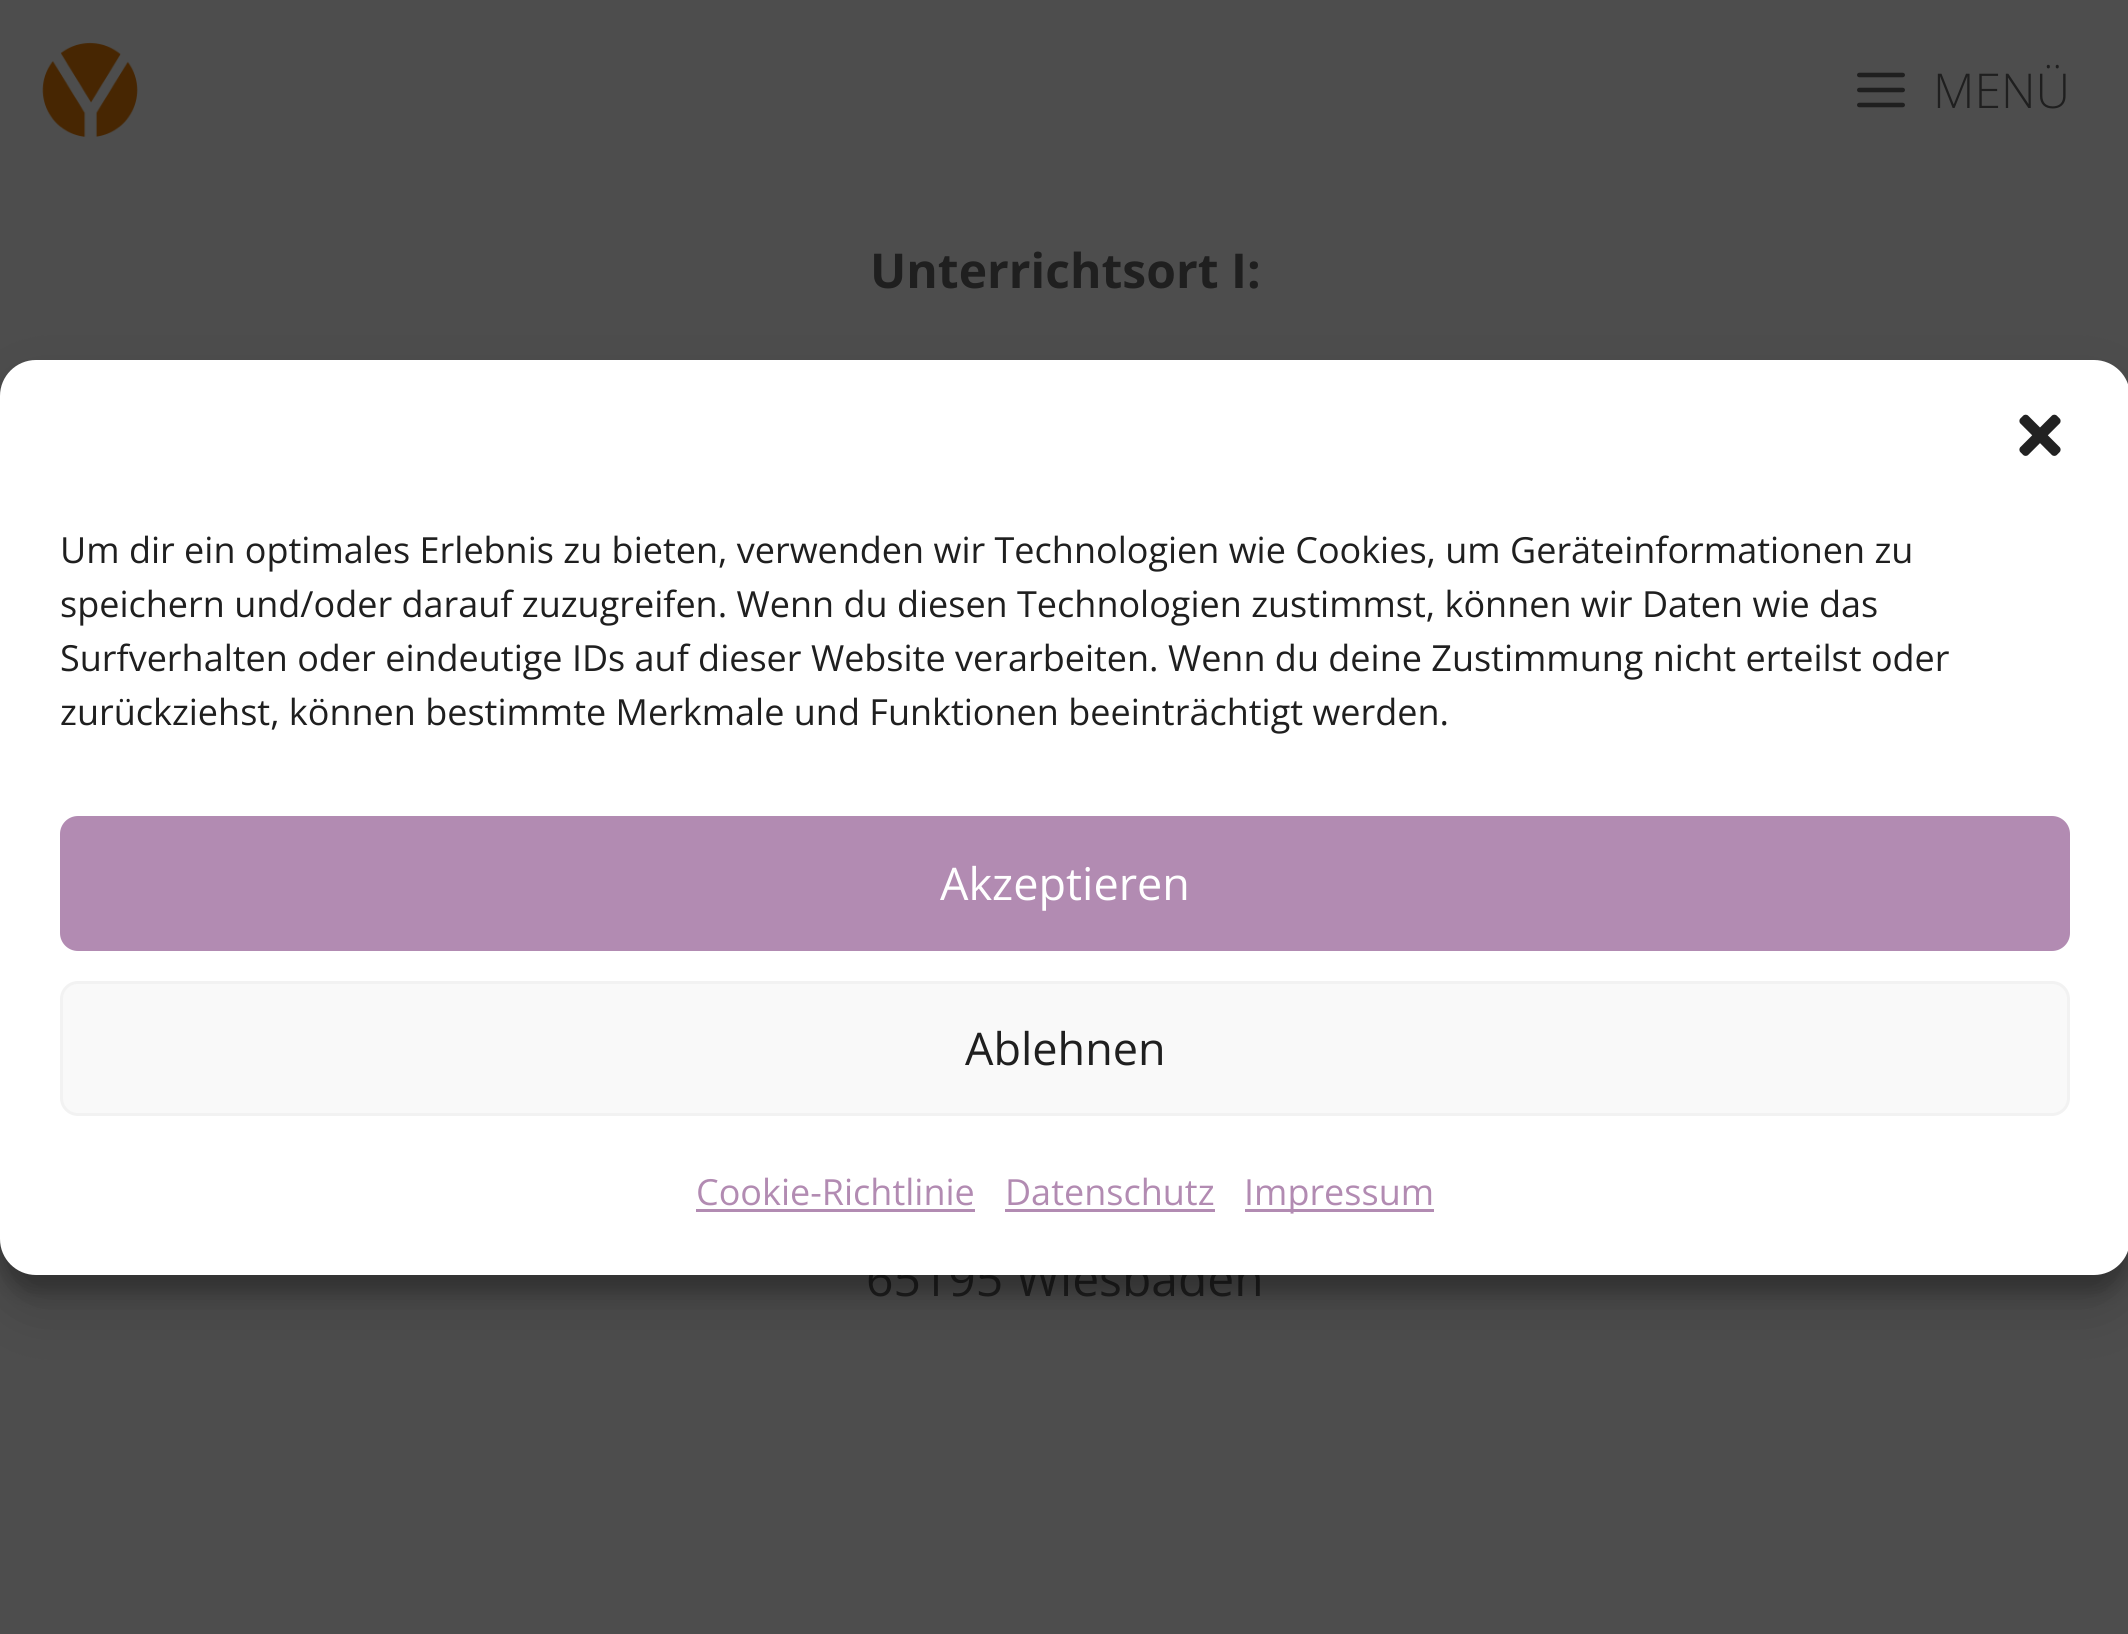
import math
import cairo

surface = cairo.ImageSurface(cairo.FORMAT_RGB24, 2128, 1634)
c = cairo.Context(surface)
options = cairo.FontOptions()
options.set_hint_metrics(cairo.HINT_METRICS_OFF)
options.set_hint_style(cairo.HINT_STYLE_NONE)
c.set_font_options(options)
c.set_miter_limit(4)
def C(code):
 c.set_source_rgb(*(v / 255 for v in bytes.fromhex(code[-6:])))
def F(family, size, italic, bold):
 c.select_font_face(family, cairo.FONT_SLANT_ITALIC if italic else cairo.FONT_SLANT_NORMAL, cairo.FONT_WEIGHT_BOLD if bold else cairo.FONT_WEIGHT_NORMAL)
 c.set_font_size(size)
def T(x, y, s):
 c.move_to(x, y)
 c.show_text(s)
def R(x, y, w, h):
 c.rectangle(x, y, w, h)
 c.fill()
def Q(x, y, w, h, r):
 c.new_sub_path()
 for i, (u, v) in enumerate([(x + w - r, y + h - r), (x + r, y + h - r), (x + r, y + r), (x + w - r, y + r)]):
  c.arc(u, v, r, i * math.pi / 2, (i + 1) * math.pi / 2)
 c.close_path()
def S(x, y, w, h, r, blur, alpha):
 c.push_group_with_content(cairo.CONTENT_ALPHA)
 c.set_operator(cairo.OPERATOR_SOURCE)
 for i in range(15, -16, -2):
  e = blur * i / 6
  if min(w, h) + 2 * e > 0:
   c.set_source_rgba(0, 0, 0, alpha * math.erfc((i - 1) / 8.5) / 2)
   Q(x - e, y - e, w + 2 * e, h + 2 * e, max(0, min(r + e + blur * .6, min(w, h) / 2 + e)))
   c.fill()
 c.mask(c.pop_group())
def I(path, x, y, w, h):
 c.save()
 c.set_source_surface(cairo.ImageSurface.create_from_png(path), x, y)
 c.rectangle(x, y, w, h)
 c.fill()
 c.restore()
C('4d4d4d')
c.paint()
I('1.png',42,42,96,95)
I('2.png',1857,72,48,36)
F('Open Sans Light',48,0,0)
C('1f1f1f')
T(1933,108,'MENÜ')
F('Open Sans',48,0,1)
T(870,288,'Unterrichtsort I:')
F('Open Sans',48,0,0)
T(866,1296,'65195 Wiesbaden')
C('000000')
S(0,378,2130,915,36,9,.23)
S(0,390,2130,915,36,30,.19)
C('ffffff')
Q(0,360,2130,915,36)
c.fill()
I('3.png',2019,414,42,42)
F('Open Sans',36,0,0)
C('1f1f1f')
T(60,563,'Um dir ein optimales Erlebnis zu bieten, verwenden wir Technologien wie Cookies, um Geräteinformationen zu')
T(60,617,'speichern und/oder darauf zuzugreifen. Wenn du diesen Technologien zustimmst, können wir Daten wie das')
T(60,671,'Surfverhalten oder eindeutige IDs auf dieser Website verarbeiten. Wenn du deine Zustimmung nicht erteilst oder')
T(60,725,'zurückziehst, können bestimmte Merkmale und Funktionen beeinträchtigt werden.')
C('b28bb2')
Q(61.5,817.5,2007,132,16.5)
c.fill_preserve()
c.set_line_width(3)
c.stroke()
F('Open Sans',45,0,0)
C('ffffff')
T(940,900,'Akzeptieren')
C('f9f9f9')
Q(61.5,982.5,2007,132,16.5)
c.fill_preserve()
C('f2f2f2')
c.stroke()
C('1f1f1f')
T(965,1065,'Ablehnen')
F('Open Sans',36,0,0)
C('b28bb2')
T(696,1205,'Cookie-Richtlinie')
R(696,1209,279,3)
T(1005,1205,'Datenschutz')
R(1005,1209,210,3)
R(1245,1209,189,3)
T(1244,1205,'Impressum')
surface.write_to_png('o.png')
